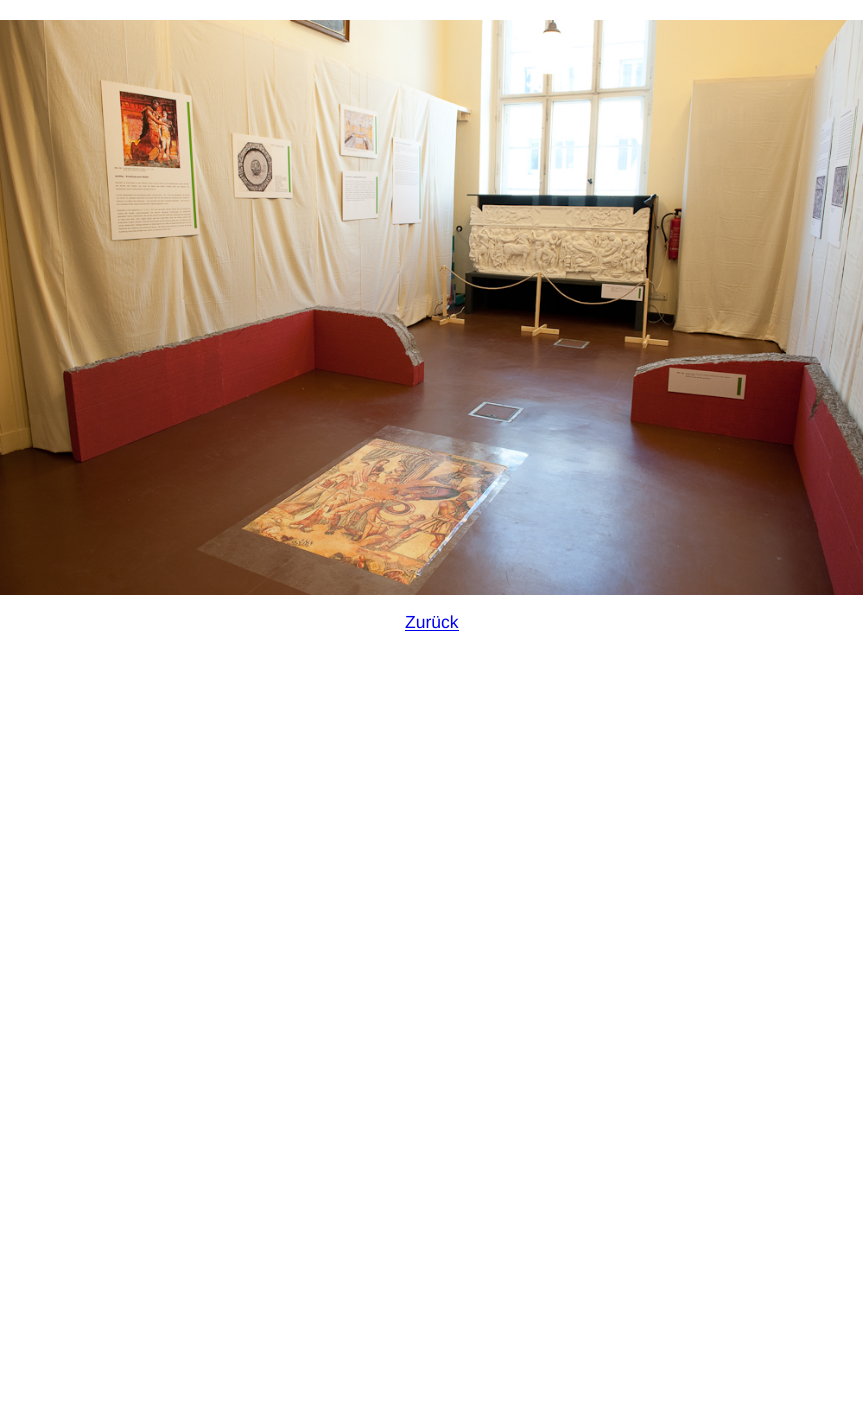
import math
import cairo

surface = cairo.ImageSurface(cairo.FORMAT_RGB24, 863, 1408)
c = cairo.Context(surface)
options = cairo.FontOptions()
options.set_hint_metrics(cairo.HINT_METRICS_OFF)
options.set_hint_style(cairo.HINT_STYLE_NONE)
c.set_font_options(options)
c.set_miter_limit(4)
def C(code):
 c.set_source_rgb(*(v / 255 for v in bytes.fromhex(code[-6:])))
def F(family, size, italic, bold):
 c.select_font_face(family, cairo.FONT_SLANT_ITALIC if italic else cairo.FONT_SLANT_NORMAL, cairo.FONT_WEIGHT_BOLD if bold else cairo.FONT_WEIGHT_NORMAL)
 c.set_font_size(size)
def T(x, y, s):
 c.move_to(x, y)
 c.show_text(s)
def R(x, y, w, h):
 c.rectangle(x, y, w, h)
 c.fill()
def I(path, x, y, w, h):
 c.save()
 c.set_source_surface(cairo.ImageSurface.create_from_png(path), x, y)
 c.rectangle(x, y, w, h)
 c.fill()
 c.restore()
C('ffffff')
c.paint()
I('1.png',0,20,863,575)
F('Liberation Sans',17.5,0,0)
C('0000ee')
T(405,628,'Zurück')
R(405,630,54,1)
surface.write_to_png('o.png')
